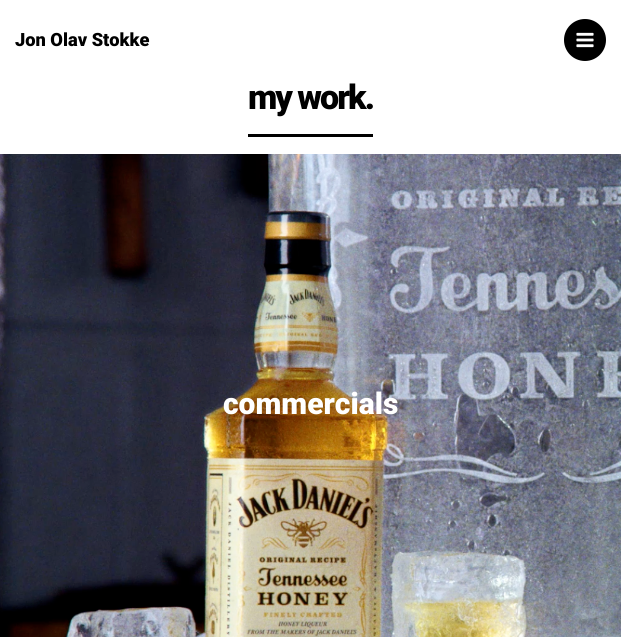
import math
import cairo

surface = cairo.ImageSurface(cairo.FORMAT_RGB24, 621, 637)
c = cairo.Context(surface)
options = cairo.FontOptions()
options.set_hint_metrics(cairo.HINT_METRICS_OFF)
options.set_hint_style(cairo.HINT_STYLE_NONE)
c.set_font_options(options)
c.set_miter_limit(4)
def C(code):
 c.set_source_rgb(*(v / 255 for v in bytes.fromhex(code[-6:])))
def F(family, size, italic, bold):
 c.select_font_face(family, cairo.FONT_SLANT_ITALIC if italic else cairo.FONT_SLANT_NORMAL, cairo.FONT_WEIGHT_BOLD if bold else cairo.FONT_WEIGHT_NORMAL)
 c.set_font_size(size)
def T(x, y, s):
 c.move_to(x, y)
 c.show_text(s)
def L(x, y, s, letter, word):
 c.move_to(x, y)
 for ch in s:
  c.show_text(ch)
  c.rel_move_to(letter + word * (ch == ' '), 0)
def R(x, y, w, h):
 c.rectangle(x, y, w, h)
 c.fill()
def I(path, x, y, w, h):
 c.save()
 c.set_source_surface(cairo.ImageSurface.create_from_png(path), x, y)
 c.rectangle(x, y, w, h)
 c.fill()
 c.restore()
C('ffffff')
c.paint()
F('Roboto Black',18.25,0,0)
C('000000')
T(15,46,'Jon Olav Stokke')
c.new_path()
c.arc(585,40,21,0,2 * math.pi)
c.fill()
I('1.png',576,32,18,16)
F('Roboto Black',34,0,0)
L(248,109,'my work.',-2,0)
R(248,134,125,3)
I('2.png',0,154,621,483)
F('Roboto Black',30,0,0)
C('ffffff')
T(223,414,'commercials')
surface.write_to_png('o.png')
